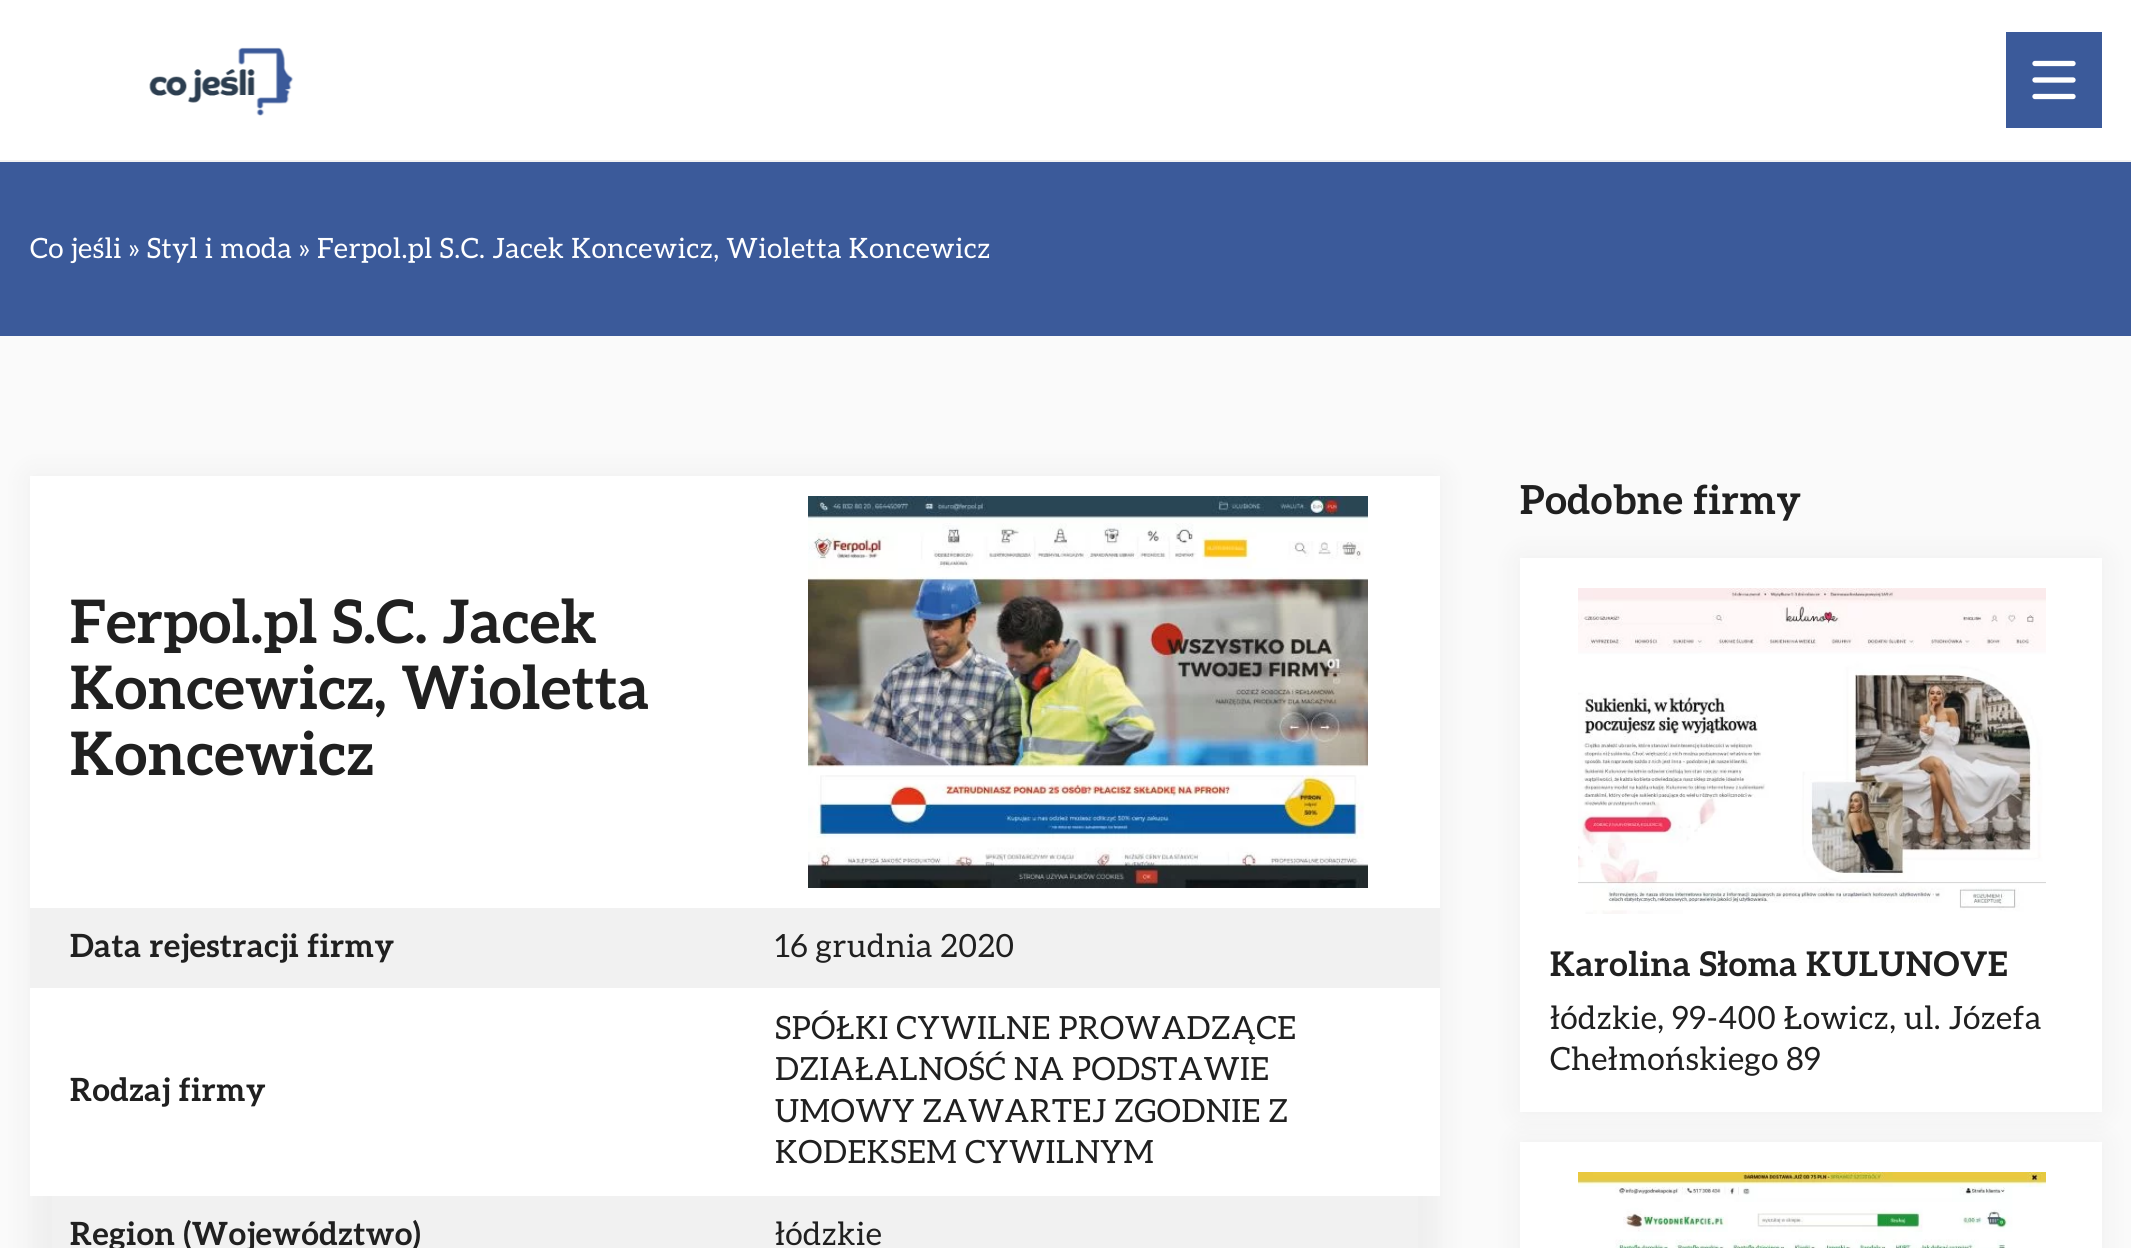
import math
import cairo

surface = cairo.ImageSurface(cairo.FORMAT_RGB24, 2131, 1248)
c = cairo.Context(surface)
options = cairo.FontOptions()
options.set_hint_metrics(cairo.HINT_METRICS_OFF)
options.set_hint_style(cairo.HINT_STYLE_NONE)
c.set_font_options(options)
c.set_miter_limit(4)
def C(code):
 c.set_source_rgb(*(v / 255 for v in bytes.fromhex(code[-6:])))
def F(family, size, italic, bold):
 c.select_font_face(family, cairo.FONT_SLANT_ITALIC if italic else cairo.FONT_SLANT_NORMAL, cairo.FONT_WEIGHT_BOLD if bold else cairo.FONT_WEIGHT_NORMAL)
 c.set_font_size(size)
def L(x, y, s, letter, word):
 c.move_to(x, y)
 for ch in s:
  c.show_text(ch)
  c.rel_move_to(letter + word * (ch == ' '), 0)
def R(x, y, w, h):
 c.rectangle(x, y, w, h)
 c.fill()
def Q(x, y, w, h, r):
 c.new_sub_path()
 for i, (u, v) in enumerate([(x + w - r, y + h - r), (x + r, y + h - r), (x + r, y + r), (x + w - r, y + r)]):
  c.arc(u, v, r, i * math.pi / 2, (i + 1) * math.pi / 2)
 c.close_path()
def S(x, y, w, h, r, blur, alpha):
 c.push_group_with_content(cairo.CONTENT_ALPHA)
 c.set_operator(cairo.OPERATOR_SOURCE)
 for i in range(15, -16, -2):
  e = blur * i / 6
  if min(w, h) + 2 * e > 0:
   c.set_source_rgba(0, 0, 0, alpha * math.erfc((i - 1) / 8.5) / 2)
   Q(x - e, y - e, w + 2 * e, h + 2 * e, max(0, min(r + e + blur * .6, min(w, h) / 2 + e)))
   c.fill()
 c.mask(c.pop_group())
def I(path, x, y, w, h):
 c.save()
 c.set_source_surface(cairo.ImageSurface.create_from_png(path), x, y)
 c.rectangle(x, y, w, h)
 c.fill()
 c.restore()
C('fafafa')
c.paint()
C('ffffff')
R(0,0,2131,160)
C('f2f2f2')
R(0,160,2131,2)
I('1.png',149,47,145,69)
C('3b5a9a')
R(2006,32,96,96)
c.new_path()
c.move_to(2035,63.5)
c.line_to(2073,63.5)
c.move_to(2035,80)
c.line_to(2073,80)
c.move_to(2073,96.5)
c.line_to(2035,96.5)
C('ffffff')
c.set_line_width(5.3)
c.set_line_cap(cairo.LINE_CAP_ROUND)
c.stroke()
C('3b5a9a')
R(0,162,2131,174)
F('Aleo',28,0,0)
C('ffffff')
L(30,258,'Co jeśli » Styl i moda » Ferpol.pl S.C. Jacek Koncewicz, Wioletta Koncewicz',.6,0)
C('000000')
S(30,476,1410,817,0,15,.05)
C('ffffff')
R(30,476,1410,720)
F('Aleo',60,0,1)
C('202020')
L(70,643,'Ferpol.pl S.C. Jacek',.6,0)
L(70,709,'Koncewicz, Wioletta',.6,0)
L(70,775,'Koncewicz',.6,0)
I('2.png',808,496,560,392)
C('f1f1f1')
R(30,908,1410,80)
F('Aleo',32,0,1)
C('202020')
L(70,957,'Data rejestracji firmy',.6,0)
F('Aleo',32,0,0)
L(775,957,'16 grudnia 2020',.6,0)
F('Aleo',32,0,1)
L(70,1101,'Rodzaj firmy',.6,0)
F('Aleo',32,0,0)
L(775,1039,'SPÓŁKI CYWILNE PROWADZĄCE',.6,0)
L(775,1080,'DZIAŁALNOŚĆ NA PODSTAWIE',.6,0)
L(775,1122,'UMOWY ZAWARTEJ ZGODNIE Z',.6,0)
L(775,1163,'KODEKSEM CYWILNYM',.6,0)
C('f1f1f1')
R(52,1196,1366,52)
F('Aleo',32,0,1)
C('202020')
L(70,1245,'Region (Województwo)',.6,0)
F('Aleo',32,0,0)
L(775,1245,'łódzkie',.6,0)
F('Aleo',40,0,1)
L(1520,514,'Podobne firmy',.6,0)
C('000000')
S(1520,558,582,554,0,15,.05)
C('ffffff')
R(1520,558,582,554)
I('3.png',1578,588,468,326)
F('Aleo',34,0,1)
C('202020')
L(1550,976,'Karolina Słoma KULUNOVE',.6,0)
F('Aleo',32,0,0)
L(1550,1029,'łódzkie, 99-400 Łowicz, ul. Józefa',.6,0)
L(1550,1070,'Chełmońskiego 89',.6,0)
C('000000')
S(1520,1142,582,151,0,15,.05)
C('ffffff')
R(1520,1142,582,106)
I('4.png',1578,1172,468,76)
surface.write_to_png('o.png')
